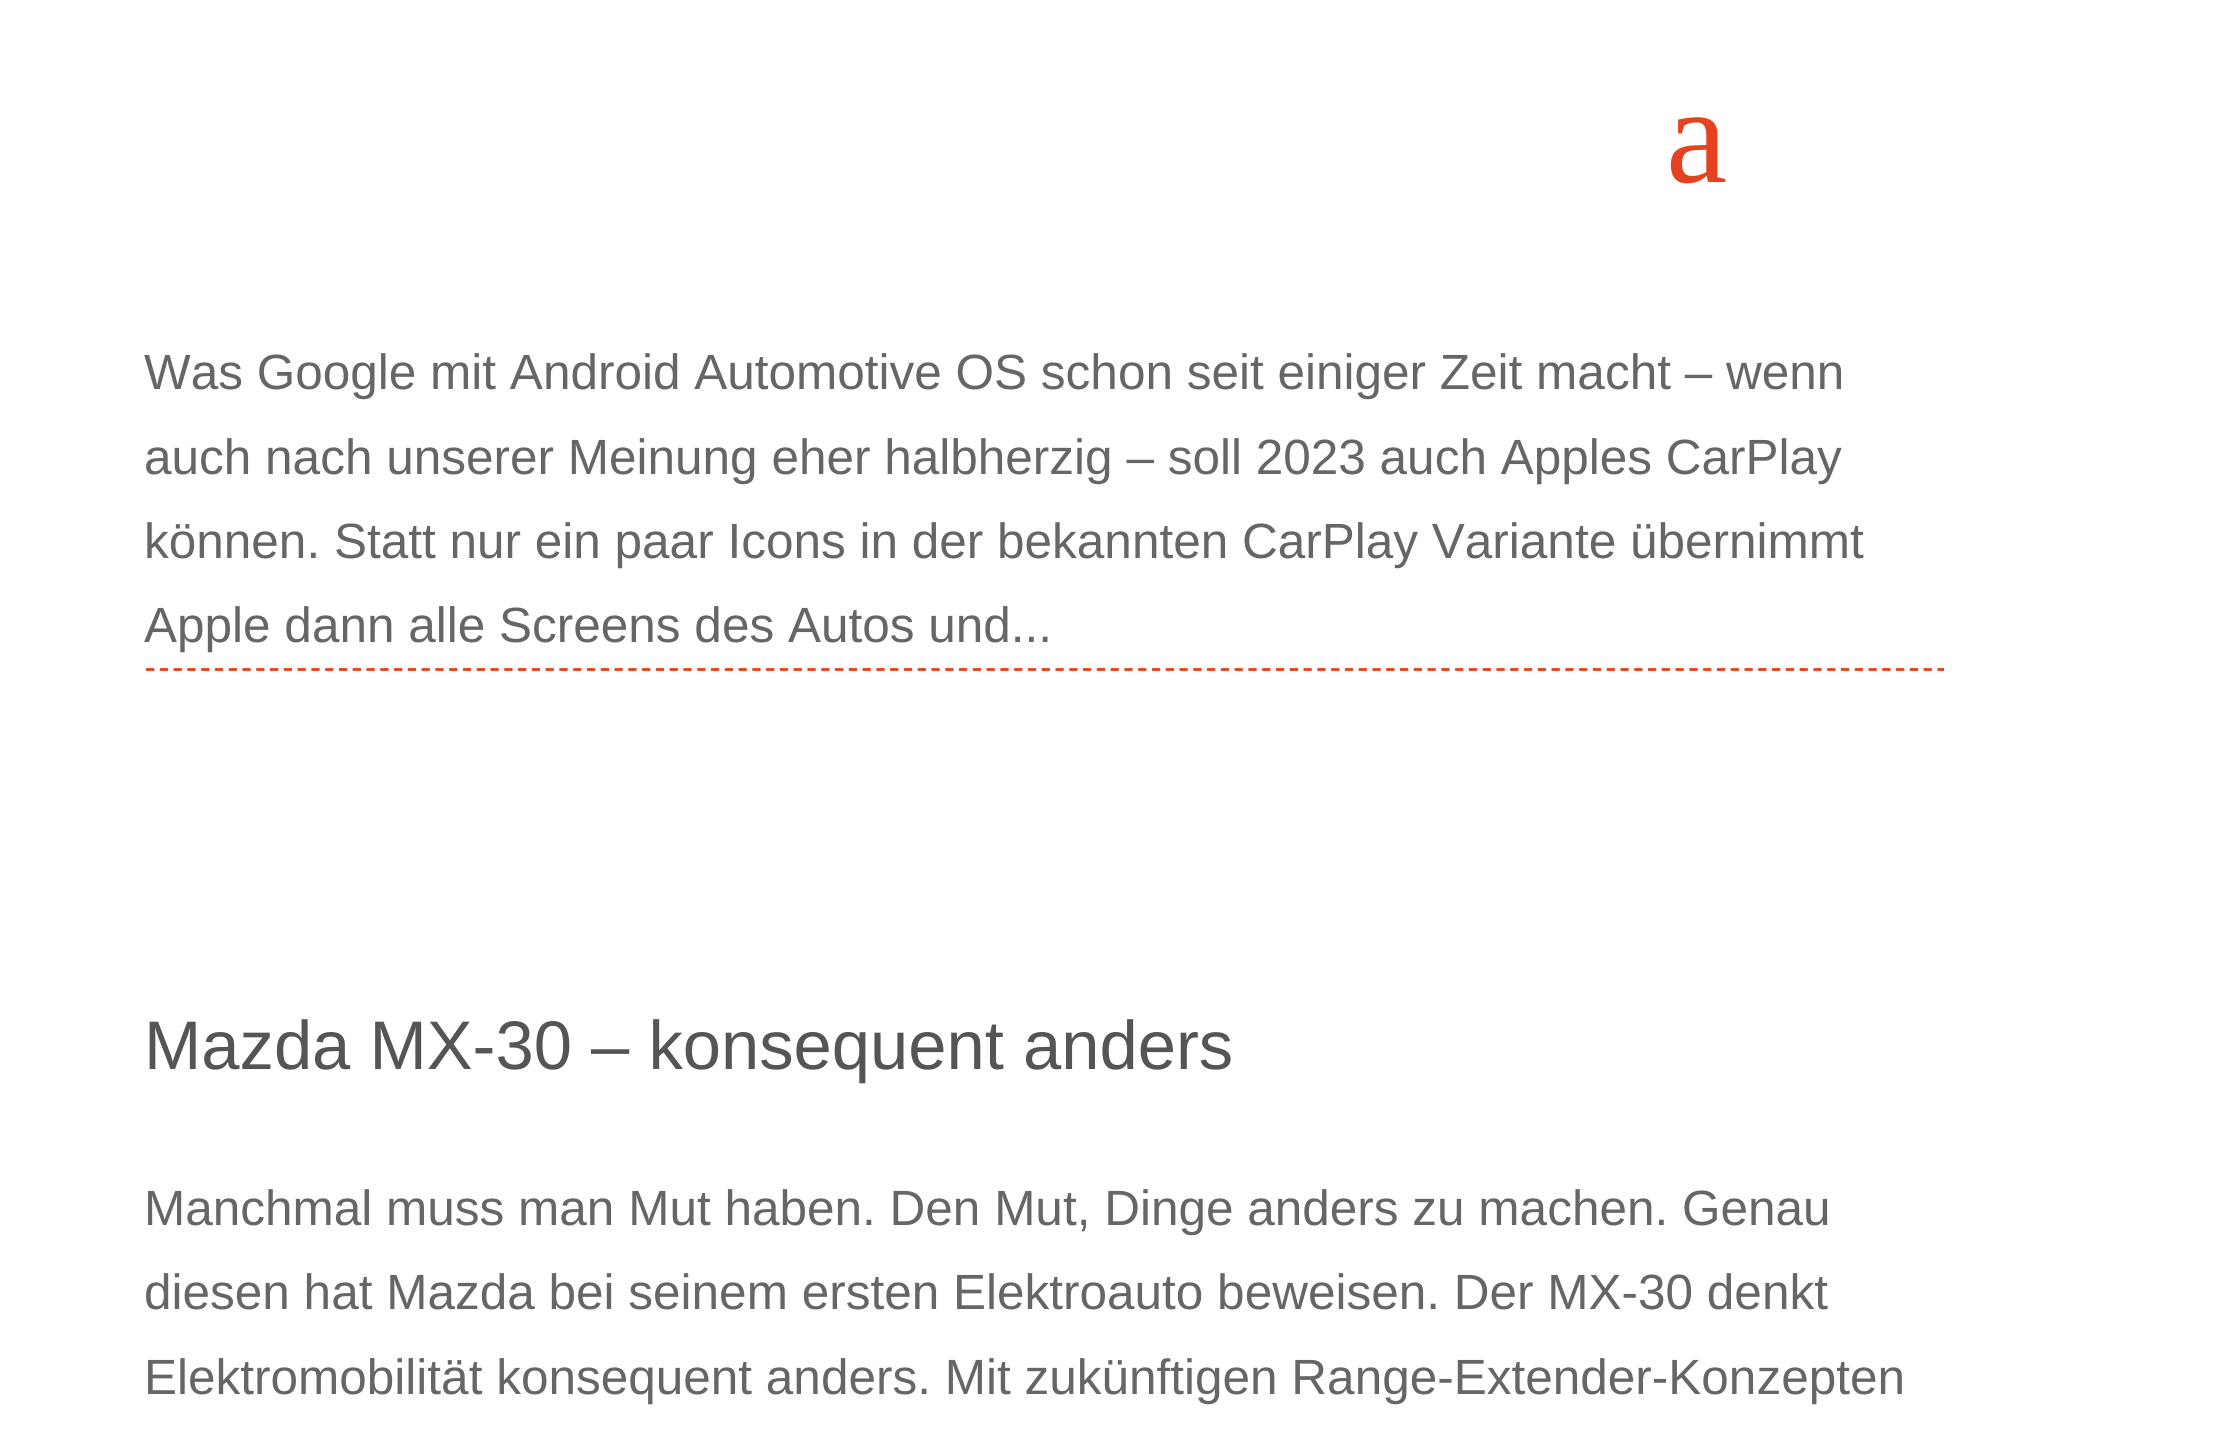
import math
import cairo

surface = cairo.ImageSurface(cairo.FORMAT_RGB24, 2221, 1454)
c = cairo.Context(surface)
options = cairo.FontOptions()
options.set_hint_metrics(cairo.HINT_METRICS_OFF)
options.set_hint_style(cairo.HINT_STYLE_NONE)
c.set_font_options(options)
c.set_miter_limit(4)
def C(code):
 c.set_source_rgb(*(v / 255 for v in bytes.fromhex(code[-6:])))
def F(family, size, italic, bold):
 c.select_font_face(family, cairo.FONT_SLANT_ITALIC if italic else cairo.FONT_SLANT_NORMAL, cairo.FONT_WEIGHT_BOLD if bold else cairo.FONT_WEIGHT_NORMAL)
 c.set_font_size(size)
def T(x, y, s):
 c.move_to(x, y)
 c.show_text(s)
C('ffffff')
c.paint()
F('Liberation Serif',138,0,0)
C('e54222')
T(1666,182,'a')
c.new_path()
c.move_to(146,669.5)
c.line_to(1944,669.5)
C('e74111')
c.set_line_width(2.8)
c.set_dash([8.25,5.53])
c.stroke()
F('Liberation Sans',49.5,0,0)
C('666666')
T(144,389,'Was Google mit Android Automotive OS schon seit einiger Zeit macht – wenn')
T(144,474,'auch nach unserer Meinung eher halbherzig – soll 2023 auch Apples CarPlay')
T(144,558,'können. Statt nur ein paar Icons in der bekannten CarPlay Variante übernimmt')
T(144,642,'Apple dann alle Screens des Autos und...')
F('Liberation Sans',68.75,0,0)
C('555555')
T(144,1069,'Mazda MX-30 – konsequent anders')
F('Liberation Sans',49.5,0,0)
C('666666')
T(144,1225,'Manchmal muss man Mut haben. Den Mut, Dinge anders zu machen. Genau')
T(144,1309,'diesen hat Mazda bei seinem ersten Elektroauto beweisen. Der MX-30 denkt')
T(144,1394,'Elektromobilität konsequent anders. Mit zukünftigen Range-Extender-Konzepten')
surface.write_to_png('o.png')
